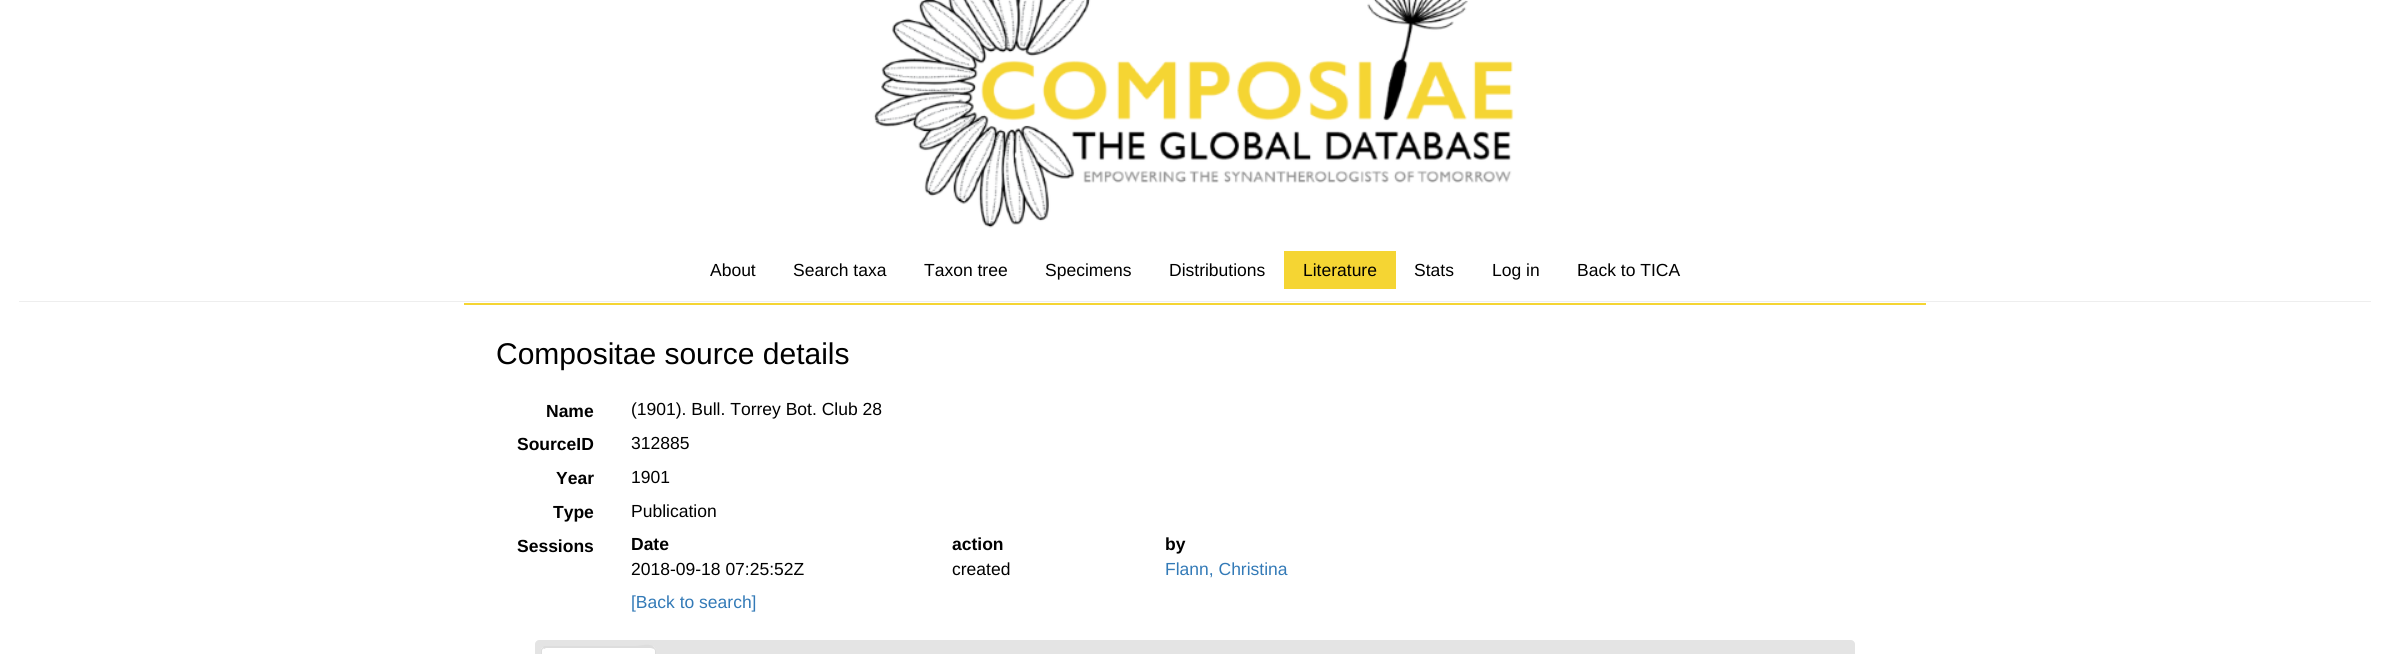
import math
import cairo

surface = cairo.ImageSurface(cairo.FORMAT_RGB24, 2389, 654)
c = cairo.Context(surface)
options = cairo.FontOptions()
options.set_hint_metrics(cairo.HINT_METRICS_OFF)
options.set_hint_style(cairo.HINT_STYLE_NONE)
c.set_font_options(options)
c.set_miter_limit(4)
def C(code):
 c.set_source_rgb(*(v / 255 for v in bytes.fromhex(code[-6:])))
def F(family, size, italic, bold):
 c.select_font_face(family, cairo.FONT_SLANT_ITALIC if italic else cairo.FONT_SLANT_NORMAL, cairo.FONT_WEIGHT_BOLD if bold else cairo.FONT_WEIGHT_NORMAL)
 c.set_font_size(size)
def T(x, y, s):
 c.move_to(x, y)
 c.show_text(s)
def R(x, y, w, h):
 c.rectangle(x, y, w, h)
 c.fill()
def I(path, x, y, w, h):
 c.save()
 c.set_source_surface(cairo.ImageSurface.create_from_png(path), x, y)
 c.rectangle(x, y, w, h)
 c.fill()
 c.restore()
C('ffffff')
c.paint()
I('1.png',873,0,641,228)
F('Liberation Sans',17.5,0,0)
C('000000')
T(710,276,'About')
T(793,276,'Search taxa')
T(924,276,'Taxon tree')
T(1045,276,'Specimens')
T(1169,276,'Distributions')
C('f5d533')
R(1284,251,112,38)
C('000000')
T(1303,276,'Literature')
T(1414,276,'Stats')
T(1492,276,'Log in')
T(1577,276,'Back to TICA')
C('eeeeee')
R(19,301,2352,1)
C('f5d533')
R(464,303,1462,2)
F('Liberation Sans',30,0,0)
C('000000')
T(496,364,'Compositae source details')
F('Liberation Sans',17.5,0,1)
T(546,417,'Name')
F('Liberation Sans',17.5,0,0)
T(631,415,'(1901). Bull. Torrey Bot. Club 28')
F('Liberation Sans',17.5,0,1)
T(517,450,'SourceID')
F('Liberation Sans',17.5,0,0)
T(631,449,'312885')
F('Liberation Sans',17.5,0,1)
T(556,484,'Year')
F('Liberation Sans',17.5,0,0)
T(631,483,'1901')
F('Liberation Sans',17.5,0,1)
T(553,518,'Type')
F('Liberation Sans',17.5,0,0)
T(631,517,'Publication')
F('Liberation Sans',17.5,0,1)
T(517,552,'Sessions')
T(631,550,'Date')
T(952,550,'action')
T(1165,550,'by')
F('Liberation Sans',17.5,0,0)
T(631,575,'2018-09-18 07:25:52Z')
T(952,575,'created')
C('337ab7')
T(1165,575,'Flann, Christina')
T(631,608,'[Back to search]')
C('e4e4e4')
c.new_path()
c.move_to(539,640)
c.line_to(1851,640)
c.curve_to(1853,640,1855,642,1855,644)
c.line_to(1855,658)
c.line_to(535,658)
c.line_to(535,644)
c.curve_to(535,642,537,640,539,640)
c.close_path()
c.fill()
C('ffffff')
c.new_path()
c.move_to(546,646)
c.line_to(651,646)
c.curve_to(654,646,656,648,656,651)
c.line_to(656,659)
c.line_to(541,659)
c.line_to(541,651)
c.curve_to(541,648,543,646,546,646)
c.close_path()
c.fill()
C('dddddd')
c.new_path()
c.move_to(546,648)
c.line_to(544,649)
c.line_to(542,647)
c.line_to(544,646)
c.line_to(635,646)
c.curve_to(642,646,650,642,655,648)
c.line_to(654,649)
c.line_to(651,648)
c.close_path()
c.fill()
c.new_path()
c.move_to(655,647.5)
c.curve_to(655.5,648.5,656,649.5,656,651)
c.line_to(656,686)
c.line_to(655,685)
c.line_to(655,650.5)
c.line_to(654,649)
c.close_path()
c.fill()
c.new_path()
c.move_to(541,649.5)
c.line_to(542.5,647.5)
c.line_to(543.5,648.5)
c.curve_to(542.5,649,542,650,542,651)
c.line_to(542,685)
c.line_to(542.5,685)
c.line_to(541,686)
c.close_path()
c.fill()
surface.write_to_png('o.png')
